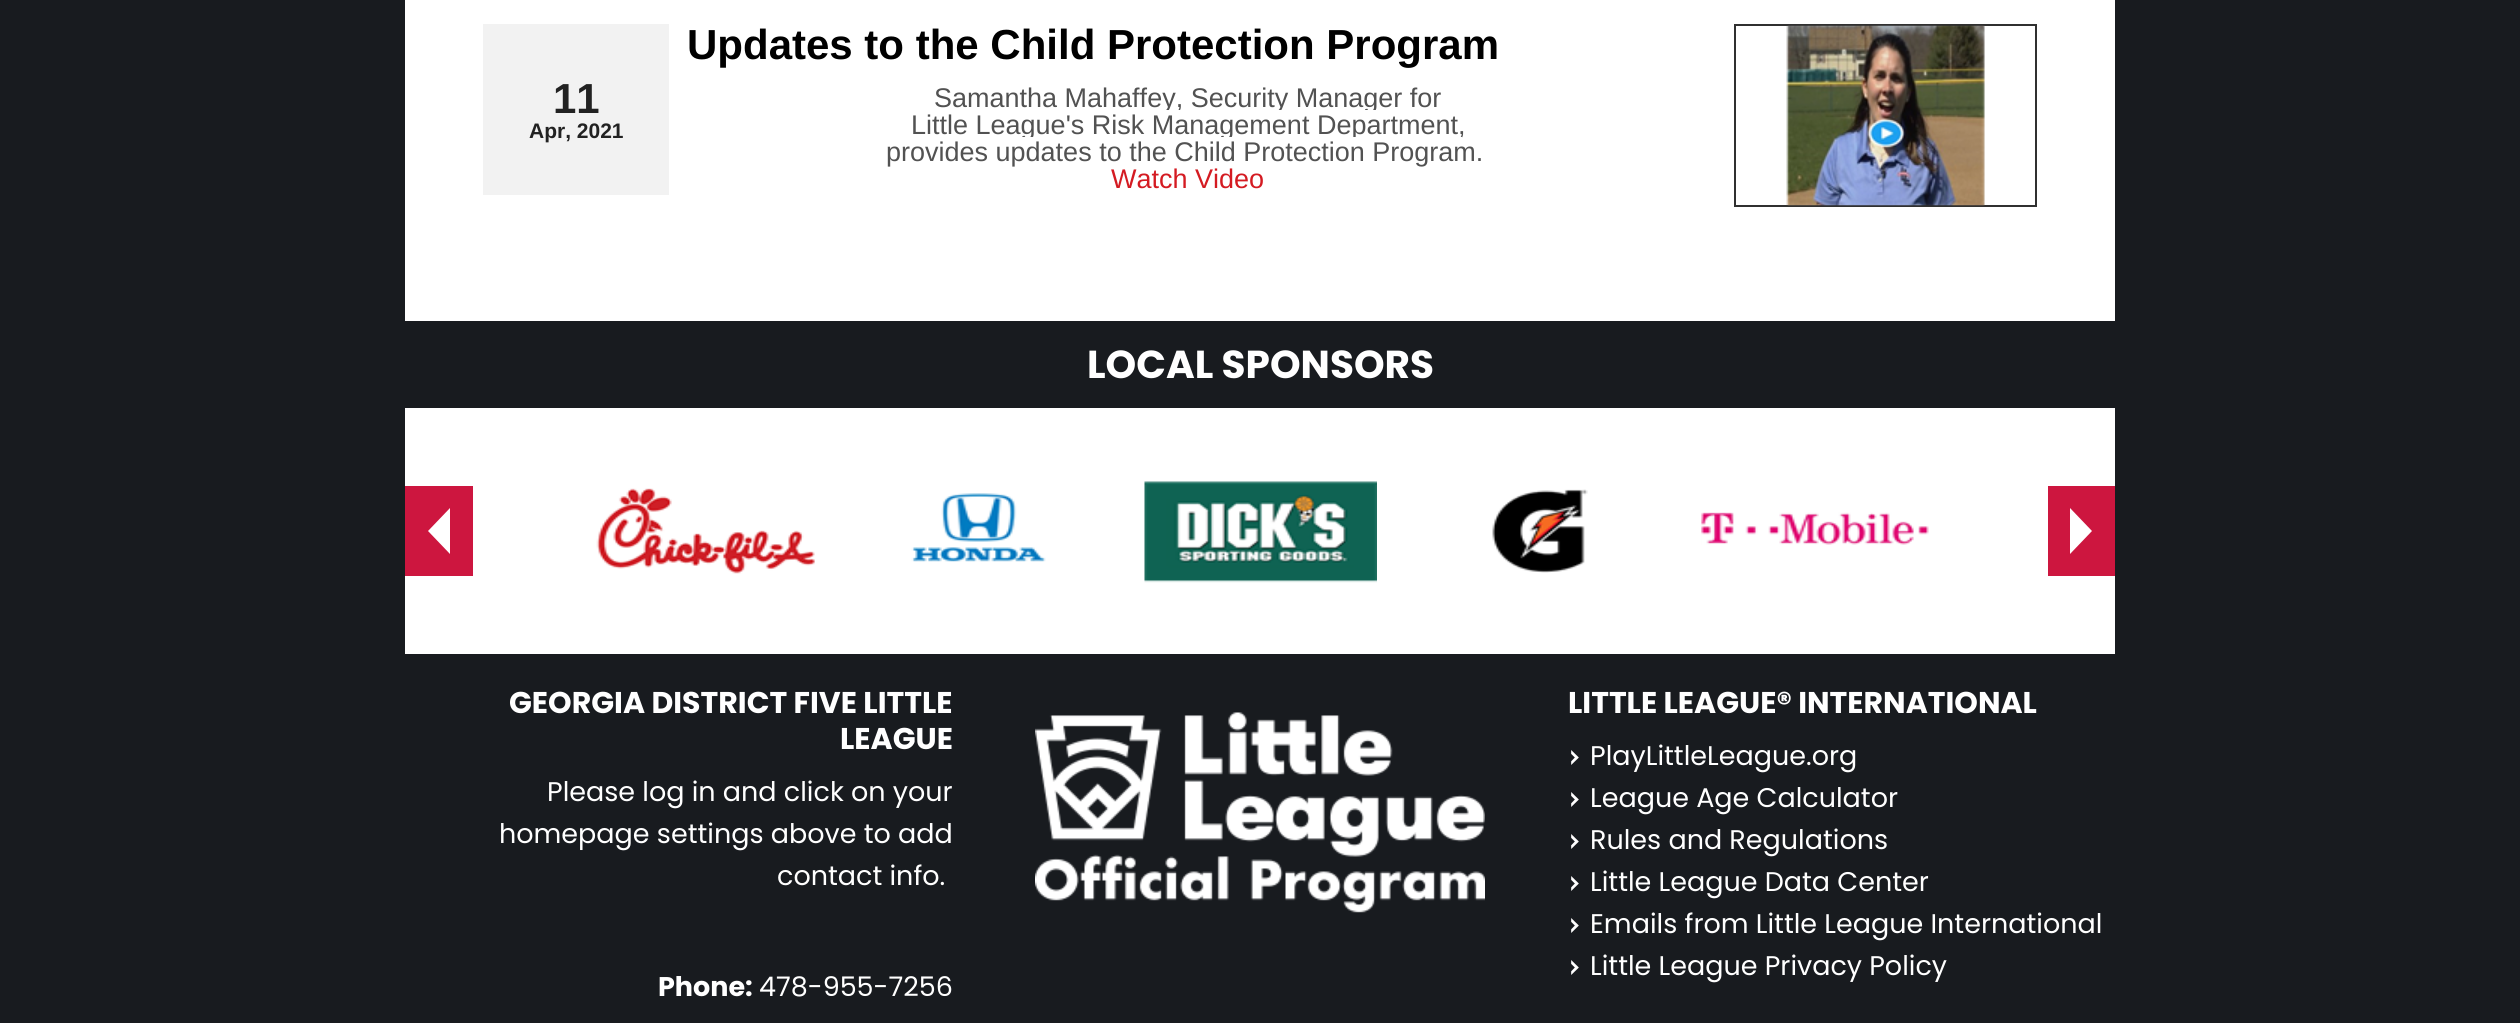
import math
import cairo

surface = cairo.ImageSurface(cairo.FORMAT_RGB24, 2520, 1023)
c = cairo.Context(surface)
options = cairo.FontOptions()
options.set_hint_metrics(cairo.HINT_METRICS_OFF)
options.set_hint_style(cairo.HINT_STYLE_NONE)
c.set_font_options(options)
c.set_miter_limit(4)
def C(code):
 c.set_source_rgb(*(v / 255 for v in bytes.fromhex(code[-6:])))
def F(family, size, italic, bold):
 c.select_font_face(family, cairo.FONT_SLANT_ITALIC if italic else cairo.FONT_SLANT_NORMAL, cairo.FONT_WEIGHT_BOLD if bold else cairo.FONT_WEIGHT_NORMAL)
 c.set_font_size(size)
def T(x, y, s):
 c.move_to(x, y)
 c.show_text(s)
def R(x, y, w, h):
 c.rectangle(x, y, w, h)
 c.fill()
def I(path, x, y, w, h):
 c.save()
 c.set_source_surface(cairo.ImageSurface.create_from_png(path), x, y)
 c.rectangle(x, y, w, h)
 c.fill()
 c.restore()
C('181b1f')
c.paint()
C('ffffff')
R(405,0,1710,321)
F('Liberation Sans',42,0,1)
C('000000')
T(687,59,'Updates to the Child Protection Program')
c.rectangle(1735,25,301,181)
C('303030')
c.stroke()
I('1.png',1786,25,199,181)
C('f2f2f2')
R(483,24,186,171)
C('222222')
T(553,113,'11')
F('Liberation Sans',21,0,1)
T(529,138,'Apr, 2021')
F('Liberation Sans',27,0,0)
C('525252')
T(934,107,'Samantha Mahaffey, Security Manager for')
T(911,134,'Little League\'s Risk Management Department,')
C('ffffff')
R(1163,110,213,3)
C('525252')
T(886,161,'provides updates to the Child Protection Program.')
C('ffffff')
R(1022,137,440,3)
C('d41b22')
T(1111,188,'Watch Video')
F('Poppins',39,0,1)
C('ffffff')
T(1087,378,'LOCAL SPONSORS')
R(405,408,1710,246)
C('cd163f')
R(405,486,68,90)
C('ffffff')
c.new_path()
c.move_to(450,508)
c.line_to(450,554)
c.line_to(428,531)
c.close_path()
c.fill()
I('2.png',596,488,219,86)
I('3.png',911,493,135,69)
I('4.png',1144,481,233,102)
I('5.png',1492,489,96,84)
I('6.png',1701,512,228,33)
C('cd163f')
R(2048,486,67,90)
C('ffffff')
c.new_path()
c.move_to(2070,554)
c.line_to(2070,508)
c.line_to(2092,531)
c.close_path()
c.fill()
F('Poppins',30,0,1)
T(509,713,'GEORGIA DISTRICT FIVE LITTLE')
T(840,749,'LEAGUE')
F('Poppins',27,0,0)
T(547,801,'Please log in and click on your')
T(499,843,'homepage settings above to add')
T(777,885,'contact info.')
F('Poppins',27,0,1)
T(658,996,'Phone:')
F('Poppins',27,0,0)
T(759,996,'478-955-7256')
I('7.png',1035,712,450,201)
F('Poppins',30,0,1)
T(1568,713,'LITTLE LEAGUE® INTERNATIONAL')
I('8.png',1571,750,8,15)
F('Poppins',27,0,0)
T(1590,765,'PlayLittleLeague.org')
I('8.png',1571,792,8,15)
T(1590,807,'League Age Calculator')
I('8.png',1571,834,8,15)
T(1590,849,'Rules and Regulations')
I('8.png',1571,876,8,15)
T(1590,891,'Little League Data Center')
I('8.png',1571,918,8,15)
T(1590,933,'Emails from Little League International')
I('8.png',1571,960,8,15)
T(1590,975,'Little League Privacy Policy')
surface.write_to_png('o.png')
